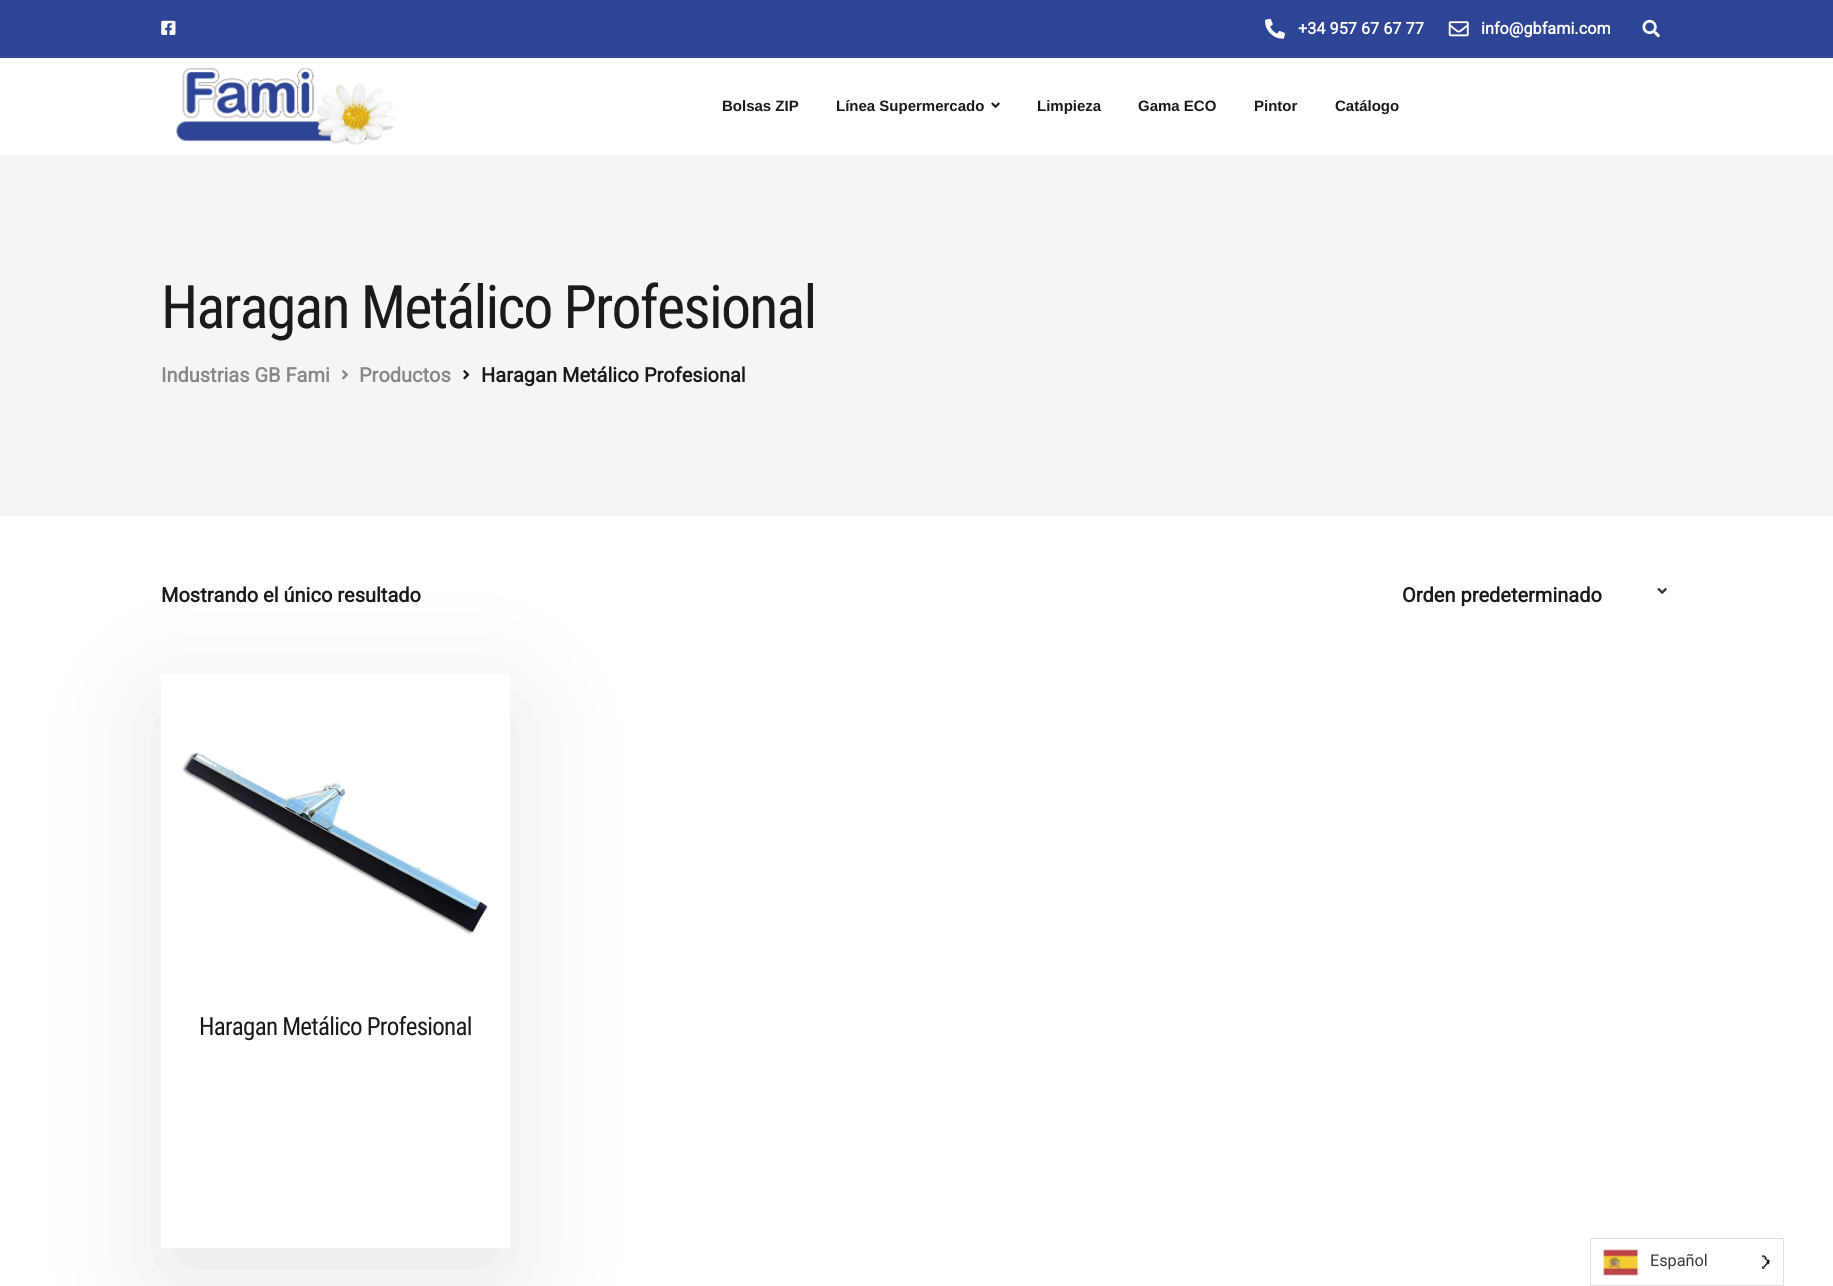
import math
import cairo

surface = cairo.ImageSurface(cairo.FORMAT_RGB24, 1833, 1286)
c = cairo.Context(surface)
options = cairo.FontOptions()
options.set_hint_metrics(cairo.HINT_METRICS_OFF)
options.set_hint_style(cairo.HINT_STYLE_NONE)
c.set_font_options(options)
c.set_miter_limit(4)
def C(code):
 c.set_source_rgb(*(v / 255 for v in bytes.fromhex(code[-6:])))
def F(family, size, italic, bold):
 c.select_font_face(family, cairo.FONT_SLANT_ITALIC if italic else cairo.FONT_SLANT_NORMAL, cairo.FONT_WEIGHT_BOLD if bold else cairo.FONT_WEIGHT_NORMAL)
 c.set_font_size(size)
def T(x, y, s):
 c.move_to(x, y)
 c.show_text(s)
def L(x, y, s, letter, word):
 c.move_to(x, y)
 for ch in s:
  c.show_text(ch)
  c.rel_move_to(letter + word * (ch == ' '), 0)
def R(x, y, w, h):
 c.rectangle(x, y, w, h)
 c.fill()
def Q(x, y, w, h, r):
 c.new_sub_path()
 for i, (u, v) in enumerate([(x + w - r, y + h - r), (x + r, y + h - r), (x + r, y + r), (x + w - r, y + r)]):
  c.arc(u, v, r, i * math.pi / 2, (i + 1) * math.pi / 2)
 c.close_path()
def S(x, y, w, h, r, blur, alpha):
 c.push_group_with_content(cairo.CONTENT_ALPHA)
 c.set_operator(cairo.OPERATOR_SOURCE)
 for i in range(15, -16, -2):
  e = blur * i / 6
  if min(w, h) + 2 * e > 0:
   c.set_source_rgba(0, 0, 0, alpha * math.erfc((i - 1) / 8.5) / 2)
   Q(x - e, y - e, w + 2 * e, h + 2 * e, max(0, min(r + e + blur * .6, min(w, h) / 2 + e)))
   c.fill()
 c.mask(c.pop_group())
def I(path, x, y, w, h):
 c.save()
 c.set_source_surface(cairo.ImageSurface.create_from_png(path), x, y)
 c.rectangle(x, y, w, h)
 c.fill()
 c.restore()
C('ffffff')
c.paint()
C('2e4596')
R(0,0,1833,58)
C('3b4e93')
R(0,56,1833,1)
I('1.png',161,20,15,15)
I('2.png',1265,18,20,21)
F('Roboto',16.25,0,1)
C('ffffff')
T(1298,34,'+34 957 67 67 77')
I('3.png',1448,21,21,16)
T(1481,34,'info@gbfami.com')
I('4.png',1642,19,18,19)
I('5.png',176,68,220,77)
F('Liberation Sans',15,0,1)
C('1a1a1a')
T(722,111,'Bolsas ZIP')
T(836,111,'Línea Supermercado')
I('6.png',991,102,9,6)
T(1037,111,'Limpieza')
T(1138,111,'Gama ECO')
T(1254,111,'Pintor')
T(1335,111,'Catálogo')
C('f5f5f5')
R(0,155,1833,361)
F('Roboto Condensed',60,0,0)
C('1a1a1a')
L(161,328,'Haragan Metálico Profesional',-1.8,0)
F('Roboto',20,0,1)
C('888888')
T(161,382,'Industrias GB Fami')
I('7.png',342,370,6,10)
T(359,382,'Productos')
I('8.png',463,370,7,10)
C('1a1a1a')
T(481,382,'Haragan Metálico Profesional')
T(161,602,'Mostrando el único resultado')
T(1402,602,'Orden predeterminado')
I('9.png',1657,588,10,6)
c.save()
c.set_fill_rule(cairo.FILL_RULE_EVEN_ODD)
c.new_path()
c.move_to(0,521)
c.line_to(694,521)
c.line_to(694,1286)
c.line_to(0,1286)
c.close_path()
c.move_to(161,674)
c.line_to(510,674)
c.line_to(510,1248)
c.line_to(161,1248)
c.close_path()
c.clip()
C('000000')
S(161,705,349,574,0,61,.1)
c.restore()
I('10.png',182,752,306,183)
C('ffffff')
R(161,985,349,263)
F('Roboto Condensed',25,0,0)
C('1a1a1a')
L(199,1035,'Haragan Metálico Profesional',-.75,0)
c.rectangle(1590.5,1238.5,193,47)
C('e0e0e0')
c.set_line_width(1)
c.stroke()
I('11.png',1603,1249,35,27)
F('Roboto',16.25,0,0)
C('383838')
T(1650,1266,'Español')
I('12.png',1762,1255,8,14)
surface.write_to_png('o.png')
